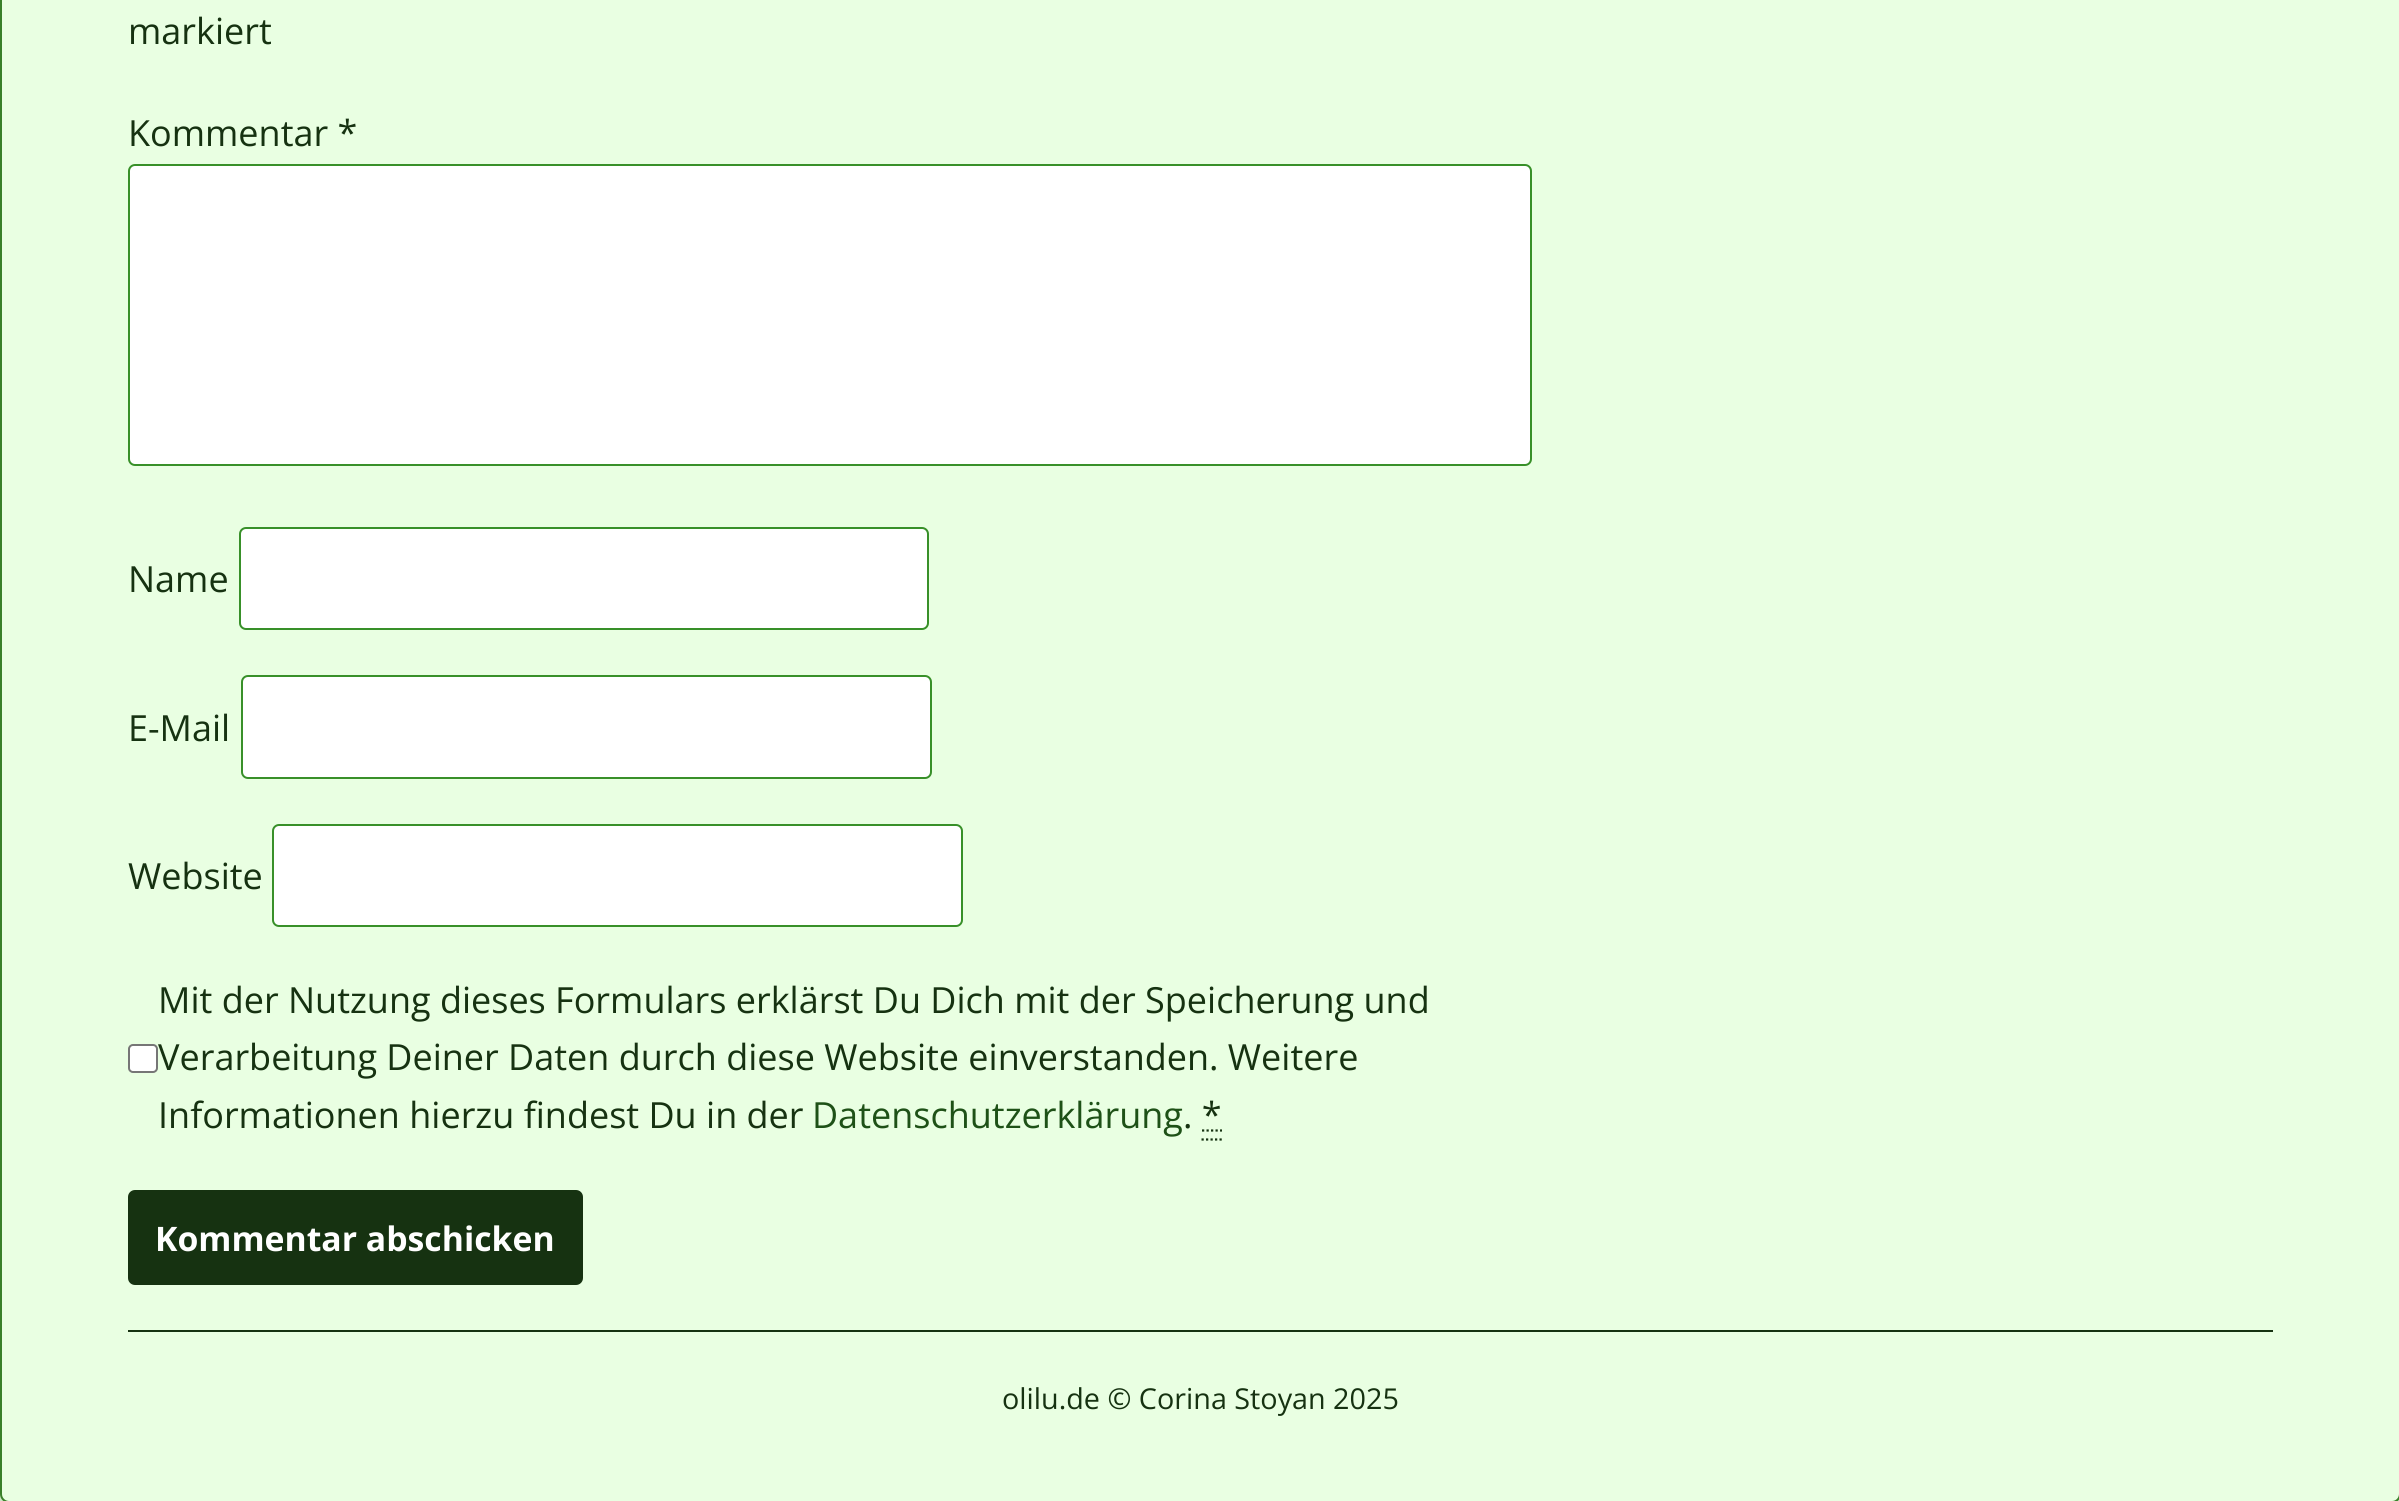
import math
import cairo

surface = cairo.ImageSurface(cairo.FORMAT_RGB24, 2399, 1501)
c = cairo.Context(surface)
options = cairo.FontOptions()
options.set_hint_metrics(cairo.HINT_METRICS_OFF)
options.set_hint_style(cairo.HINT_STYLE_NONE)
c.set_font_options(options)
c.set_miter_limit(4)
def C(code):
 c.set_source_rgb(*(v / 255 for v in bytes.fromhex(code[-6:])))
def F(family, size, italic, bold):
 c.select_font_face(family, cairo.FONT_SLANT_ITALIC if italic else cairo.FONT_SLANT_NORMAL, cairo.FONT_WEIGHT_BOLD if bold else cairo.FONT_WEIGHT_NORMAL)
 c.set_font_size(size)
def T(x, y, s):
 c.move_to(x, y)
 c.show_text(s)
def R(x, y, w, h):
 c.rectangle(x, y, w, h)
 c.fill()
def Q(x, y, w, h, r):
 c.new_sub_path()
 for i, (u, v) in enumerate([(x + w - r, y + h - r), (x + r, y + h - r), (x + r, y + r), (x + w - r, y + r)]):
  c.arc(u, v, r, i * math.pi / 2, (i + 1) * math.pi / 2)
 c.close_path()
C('cce8c5')
c.paint()
C('e9ffe2')
Q(1,-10,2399,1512,8)
c.fill_preserve()
C('398029')
c.stroke()
F('Open Sans',36,0,0)
C('163211')
T(128,44,'markiert')
T(128,146,'Kommentar *')
C('ffffff')
Q(129,165,1402,300,6)
c.fill_preserve()
C('389029')
c.stroke()
C('163211')
T(128,592,'Name')
C('ffffff')
Q(240,528,688,101,6)
c.fill_preserve()
C('389029')
c.stroke()
C('163211')
T(128,741,'E-Mail')
C('ffffff')
Q(242,676,689,102,6)
c.fill_preserve()
C('389029')
c.stroke()
C('163211')
T(128,889,'Website')
C('ffffff')
Q(273,825,689,101,6)
c.fill_preserve()
C('389029')
c.stroke()
C('ffffff')
Q(129,1045,28,27,4)
c.fill_preserve()
C('767676')
c.stroke()
C('163211')
T(158,1013,'Mit der Nutzung dieses Formulars erklärst Du Dich mit der Speicherung und')
T(158,1070,'Verarbeitung Deiner Daten durch diese Website einverstanden. Weitere')
T(158,1128,'Informationen hierzu findest Du in der')
C('1e5117')
T(812,1128,'Datenschutzerklärung')
C('163211')
T(1183,1128,'. *')
c.new_path()
c.move_to(1201.5,1139.5)
c.line_to(1222,1139.5)
c.move_to(1202,1130.5)
c.line_to(1222,1130.5)
c.set_line_width(2.2)
c.set_dash([2.25,2.25])
c.stroke()
Q(128,1190,455,95,7)
c.fill()
F('Open Sans',33.75,0,1)
C('ffffff')
T(155,1251,'Kommentar abschicken')
C('163211')
R(128,1330,2145,2)
F('Open Sans',28.75,0,0)
T(1002,1409,'olilu.de © Corina Stoyan 2025')
surface.write_to_png('o.png')
